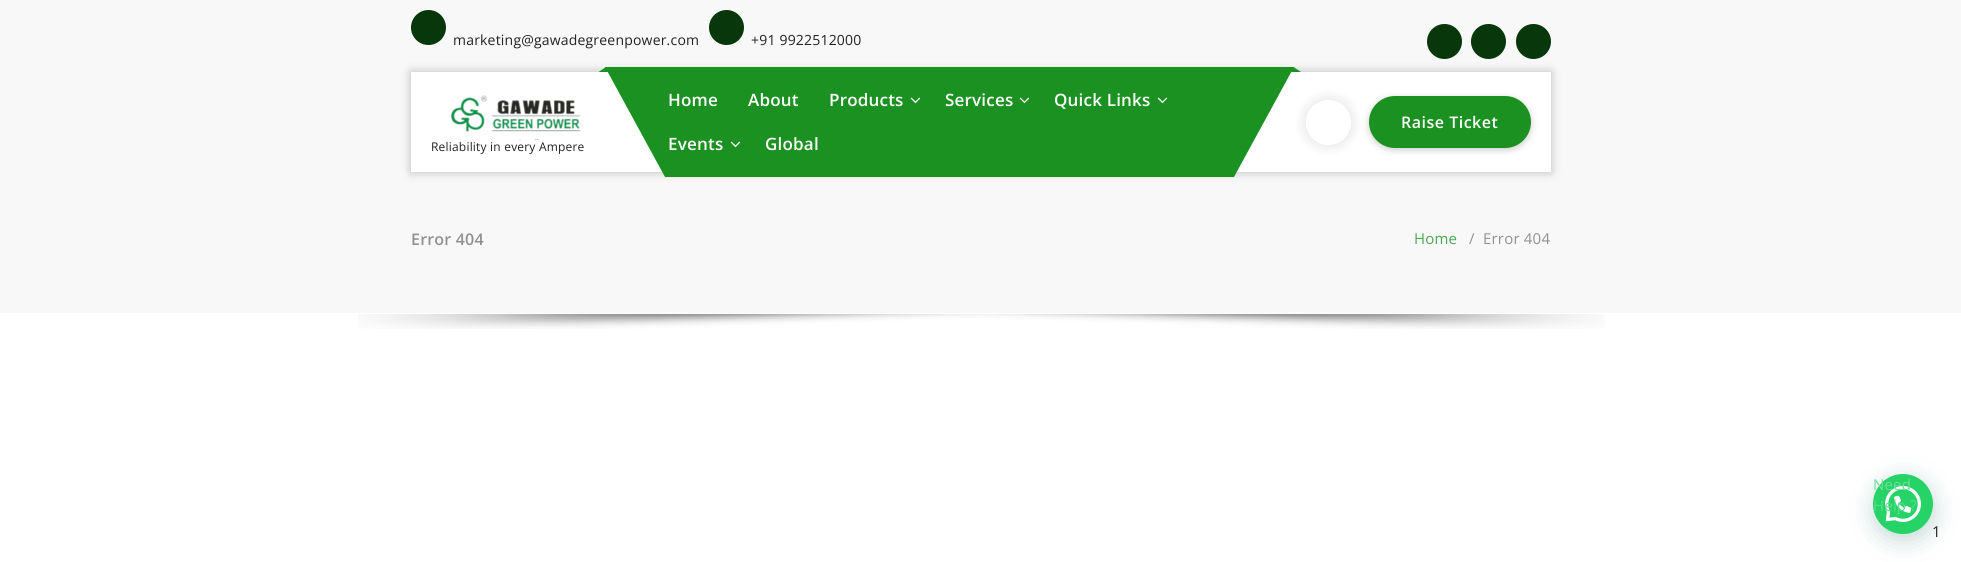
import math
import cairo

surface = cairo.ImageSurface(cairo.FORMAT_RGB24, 1961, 562)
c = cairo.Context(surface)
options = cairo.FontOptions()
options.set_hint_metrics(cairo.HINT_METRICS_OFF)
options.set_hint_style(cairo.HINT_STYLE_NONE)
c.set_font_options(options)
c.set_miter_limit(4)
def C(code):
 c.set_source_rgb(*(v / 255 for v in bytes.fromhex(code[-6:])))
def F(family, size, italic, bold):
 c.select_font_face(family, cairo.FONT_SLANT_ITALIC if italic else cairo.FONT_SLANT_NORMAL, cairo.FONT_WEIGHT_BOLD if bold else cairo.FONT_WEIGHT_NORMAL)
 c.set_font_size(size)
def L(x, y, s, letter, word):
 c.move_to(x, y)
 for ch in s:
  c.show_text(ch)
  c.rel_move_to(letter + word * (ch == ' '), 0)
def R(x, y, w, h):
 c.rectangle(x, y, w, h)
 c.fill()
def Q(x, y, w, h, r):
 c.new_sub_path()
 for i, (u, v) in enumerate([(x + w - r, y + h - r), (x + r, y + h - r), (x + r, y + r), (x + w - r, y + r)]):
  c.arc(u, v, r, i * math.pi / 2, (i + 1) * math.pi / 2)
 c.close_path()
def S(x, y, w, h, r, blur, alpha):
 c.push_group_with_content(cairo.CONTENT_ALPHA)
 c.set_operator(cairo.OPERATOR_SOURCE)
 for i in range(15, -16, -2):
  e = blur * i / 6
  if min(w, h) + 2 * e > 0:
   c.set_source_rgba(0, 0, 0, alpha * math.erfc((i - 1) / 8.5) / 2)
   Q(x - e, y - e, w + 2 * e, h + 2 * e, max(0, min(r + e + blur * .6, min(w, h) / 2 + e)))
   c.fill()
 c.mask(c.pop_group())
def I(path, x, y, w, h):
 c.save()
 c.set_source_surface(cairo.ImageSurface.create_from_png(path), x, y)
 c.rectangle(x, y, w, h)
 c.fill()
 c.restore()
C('ffffff')
c.paint()
C('f8f8f8')
R(0,0,1961,313)
C('07370a')
c.arc(428.5,27.5,17.5,0,2 * math.pi)
c.fill()
F('Open Sans',14,0,0)
C('222222')
L(453,45,'marketing@gawadegreenpower.com',.2,0)
C('07370a')
c.new_path()
c.arc(726.5,27.5,17.5,0,2 * math.pi)
c.fill()
C('222222')
L(751,45,'+91 9922512000',.2,0)
C('07370a')
c.new_path()
c.arc(1444.5,41.5,17.5,0,2 * math.pi)
c.fill()
c.arc(1488.5,41.5,17.5,0,2 * math.pi)
c.fill()
c.arc(1533.5,41.5,17.5,0,2 * math.pi)
c.fill()
C('000000')
S(411,72,1140,100,0,5,.25)
C('ffffff')
R(411,72,1140,100)
C('1a9120')
c.new_path()
c.move_to(606,67)
c.line_to(598.5,72)
c.line_to(608,72)
c.line_to(608,71.5)
c.close_path()
c.fill()
c.new_path()
c.move_to(1293,67)
c.line_to(1291,72)
c.line_to(1301,72)
c.line_to(1293.5,67)
c.close_path()
c.fill()
c.new_path()
c.move_to(605,67)
c.line_to(665,177)
c.line_to(1234,177)
c.line_to(1294,67)
c.close_path()
c.fill()
F('Open Sans SemiBold',17,0,0)
C('ffffff')
L(668,106,'Home',.2,0)
L(748,106,'About',.2,0)
L(829,106,'Products',.2,0)
I('1.png',910,97,11,7)
L(945,106,'Services',.2,0)
I('1.png',1019,97,11,7)
L(1054,106,'Quick Links',.2,0)
I('1.png',1157,97,11,7)
L(668,150,'Events',.2,0)
I('1.png',730,141,11,7)
L(765,150,'Global',.2,0)
c.save()
c.set_fill_rule(cairo.FILL_RULE_EVEN_ODD)
c.new_path()
c.move_to(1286,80)
c.line_to(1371,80)
c.line_to(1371,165)
c.line_to(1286,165)
c.close_path()
c.move_to(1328.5,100)
c.curve_to(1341,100,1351,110,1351,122.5)
c.curve_to(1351,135,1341,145,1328.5,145)
c.curve_to(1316,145,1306,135,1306,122.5)
c.curve_to(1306,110,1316,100,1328.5,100)
c.close_path()
c.clip()
C('000000')
S(1302,96,53,53,26.5,5,.08)
c.restore()
C('1d1d1d')
S(1370,99,160,50,25,4,.28)
C('1a9120')
Q(1370,97,160,50,25)
c.fill_preserve()
c.stroke()
F('Open Sans SemiBold',16,0,0)
C('ffffff')
L(1401,128,'Raise Ticket',.5,0)
I('2.png',451,95,130,45)
F('Open Sans',12,0,0)
C('222222')
L(431,151,'Reliability in every Ampere',.2,0)
F('Open Sans SemiBold',16,0,0)
C('919191')
L(411,245,'Error 404',.2,0)
F('Open Sans',15,0,0)
C('4aa84f')
L(1414,244,'Home',.2,0)
C('919191')
L(1469,244,'/',.2,0)
L(1483,244,'Error 404',.2,0)
I('3.png',358,314,1247,15)
C('075e54')
S(1874,480,60,60,30,12,.24)
C('25d366')
c.arc(1903,504,30,0,2 * math.pi)
c.fill()
I('4.png',1885,486,36,36)
C('6ce098')
L(1873,490,'Need',.2,0)
C('56dd88')
L(1873,511,'Help ?',.2,0)
C('222222')
L(1932,537,'1',.2,0)
surface.write_to_png('o.png')
